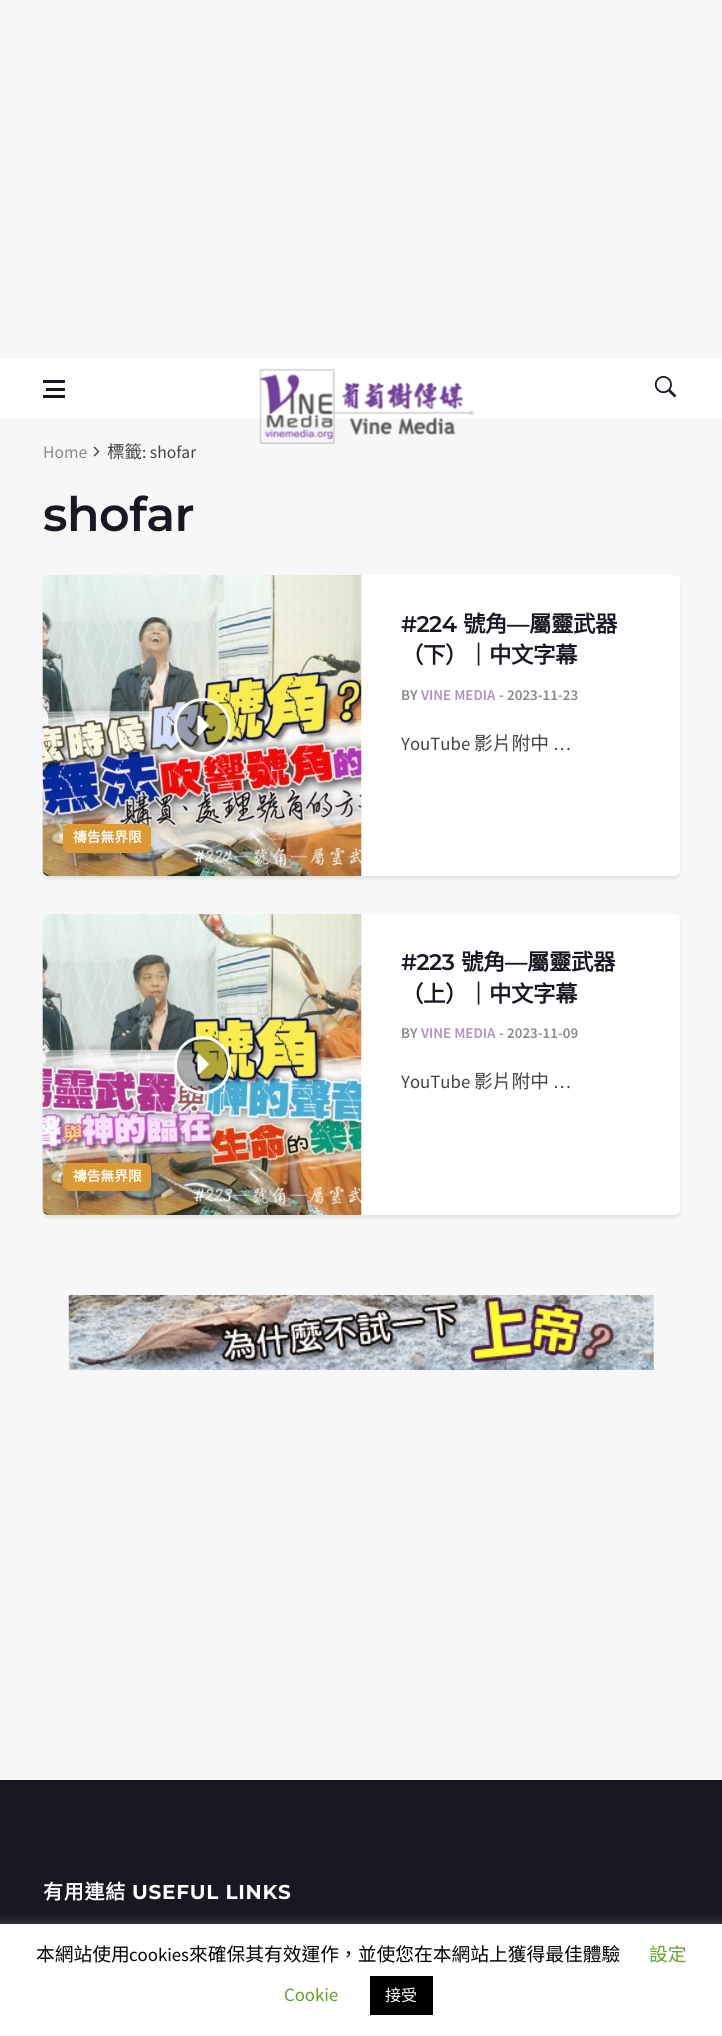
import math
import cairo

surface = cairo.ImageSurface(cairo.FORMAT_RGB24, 722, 2036)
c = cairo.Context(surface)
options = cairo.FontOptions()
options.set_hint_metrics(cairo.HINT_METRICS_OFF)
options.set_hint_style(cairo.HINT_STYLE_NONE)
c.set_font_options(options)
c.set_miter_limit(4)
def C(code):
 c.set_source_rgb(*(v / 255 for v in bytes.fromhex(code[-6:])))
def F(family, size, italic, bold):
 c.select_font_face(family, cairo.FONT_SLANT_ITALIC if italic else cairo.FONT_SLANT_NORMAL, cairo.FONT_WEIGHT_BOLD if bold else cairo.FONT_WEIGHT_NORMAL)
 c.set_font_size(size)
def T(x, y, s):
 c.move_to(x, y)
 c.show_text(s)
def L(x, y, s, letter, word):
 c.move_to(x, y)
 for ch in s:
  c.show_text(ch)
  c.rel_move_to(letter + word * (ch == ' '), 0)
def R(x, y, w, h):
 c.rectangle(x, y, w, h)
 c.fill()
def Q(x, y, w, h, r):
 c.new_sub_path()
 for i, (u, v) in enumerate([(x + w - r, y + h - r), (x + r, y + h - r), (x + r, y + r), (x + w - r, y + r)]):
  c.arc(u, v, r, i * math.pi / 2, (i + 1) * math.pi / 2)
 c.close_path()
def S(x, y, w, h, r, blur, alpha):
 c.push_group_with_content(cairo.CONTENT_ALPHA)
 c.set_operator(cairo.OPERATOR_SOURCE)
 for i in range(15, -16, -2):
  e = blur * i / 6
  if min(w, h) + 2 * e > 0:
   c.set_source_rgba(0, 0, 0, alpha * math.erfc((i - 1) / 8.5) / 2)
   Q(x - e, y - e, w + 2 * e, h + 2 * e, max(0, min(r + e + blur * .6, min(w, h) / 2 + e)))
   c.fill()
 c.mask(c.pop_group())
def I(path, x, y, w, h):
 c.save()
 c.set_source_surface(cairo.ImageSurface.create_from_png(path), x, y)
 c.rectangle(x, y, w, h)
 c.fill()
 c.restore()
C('f7f7f7')
c.paint()
C('ffffff')
R(0,359,722,60)
C('171821')
R(46,388,19,3)
R(43,380,22,3)
R(43,395,22,3)
I('1.png',259,368,215,76)
I('2.png',654,376,23,22)
F('Source Sans Pro',17.5,0,0)
C('888888')
T(43,458,'Home')
I('3.png',93,446,7,11)
F('Noto Sans CJK TC',17.5,0,0)
C('444444')
T(107,458,'標籤')
F('Source Sans Pro',17.5,0,0)
T(142,458,': shofar')
F('Montserrat SemiBold',47.5,0,0)
C('171821')
L(43,531,'shofar',-.5,0)
C('000000')
S(43,578,637,301,6,1,.08)
C('ffffff')
Q(43,575,637,301,6)
c.fill()
Q(361,575,319,301,6)
c.fill()
F('Montserrat SemiBold',22.5,0,0)
C('171821')
L(401,632,'#224',-.5,0)
F('Noto Sans CJK TC',22.5,0,1)
L(463,632,'號角',-.5,0)
F('Montserrat SemiBold',22.5,0,0)
L(507,632,'—',-.5,0)
F('Noto Sans CJK TC',22.5,0,1)
L(529,632,'屬靈武器',-.5,0)
L(401,663,'（下）｜中文字幕',-.5,0)
F('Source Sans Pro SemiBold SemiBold',15,0,0)
C('888888')
T(401,700,'BY')
C('af8fc7')
T(421,700,'VINE MEDIA')
C('888888')
T(499,700,'-')
T(507,700,'2023-11-23')
F('Source Sans Pro',18.75,0,0)
C('444444')
T(401,750,'YouTube')
F('Noto Sans CJK TC',18.75,0,0)
T(474,750,'影片附中')
F('Source Sans Pro',18.75,0,0)
T(553,750,'…')
I('4.png',42,575,320,302)
c.set_source_rgba(0,0,0,0.3)
c.arc(202.5,726.5,27,0,2 * math.pi)
c.fill_preserve()
C('ffffff')
c.set_line_width(3)
c.stroke()
I('5.png',197,715,12,21)
C('dd9933')
Q(63,824,88,29,6)
c.fill()
F('Noto Sans CJK TC',13.75,0,1)
C('ffffff')
T(73,842,'禱告無界限')
C('000000')
S(43,916,637,302,6,1,.08)
C('ffffff')
Q(43,914,637,301,6)
c.fill()
Q(361,914,319,301,6)
c.fill()
F('Montserrat SemiBold',22.5,0,0)
C('171821')
L(401,970,'#223',-.5,0)
F('Noto Sans CJK TC',22.5,0,1)
L(461,970,'號角',-.5,0)
F('Montserrat SemiBold',22.5,0,0)
L(505,970,'—',-.5,0)
F('Noto Sans CJK TC',22.5,0,1)
L(527,970,'屬靈武器',-.5,0)
L(401,1002,'（上）｜中文字幕',-.5,0)
F('Source Sans Pro SemiBold SemiBold',15,0,0)
C('888888')
T(401,1038,'BY')
C('af8fc7')
T(421,1038,'VINE MEDIA')
C('888888')
T(499,1038,'-')
T(507,1038,'2023-11-09')
F('Source Sans Pro',18.75,0,0)
C('444444')
T(401,1088,'YouTube')
F('Noto Sans CJK TC',18.75,0,0)
T(474,1088,'影片附中')
F('Source Sans Pro',18.75,0,0)
T(553,1088,'…')
I('6.png',42,913,320,302)
c.set_source_rgba(0,0,0,0.3)
Q(175.5,1037.5,54,55,27)
c.fill_preserve()
C('ffffff')
c.stroke()
I('7.png',197,1054,12,21)
C('dd9933')
Q(63,1163,88,28,6)
c.fill()
F('Noto Sans CJK TC',13.75,0,1)
C('ffffff')
T(73,1181,'禱告無界限')
I('8.png',68,1295,586,75)
C('171821')
R(0,1780,722,144)
F('Noto Sans CJK TC',20,0,1)
C('ffffff')
L(43,1899,'有用連結',.75,0)
F('Montserrat',20,0,1)
L(132,1899,'USEFUL LINKS',.75,0)
C('acabab')
S(0,1923,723,112,0,6,.3)
C('ffffff')
R(0,1924,722,112)
F('Noto Sans CJK TC',18.75,0,0)
C('000000')
T(36,1961,'本網站使用')
F('Source Sans Pro',18.75,0,0)
T(129,1961,'cookies')
F('Noto Sans CJK TC',18.75,0,0)
T(189,1961,'來確保其有效運作，並使您在本網站上獲得最佳體驗')
C('62a329')
T(649,1961,'設定')
F('Source Sans Pro',18.75,0,0)
T(284,2001,'Cookie')
C('000000')
R(370,1976,63,39)
F('Noto Sans CJK TC',16,0,0)
C('ffffff')
T(385,2001,'接受')
surface.write_to_png('o.png')
